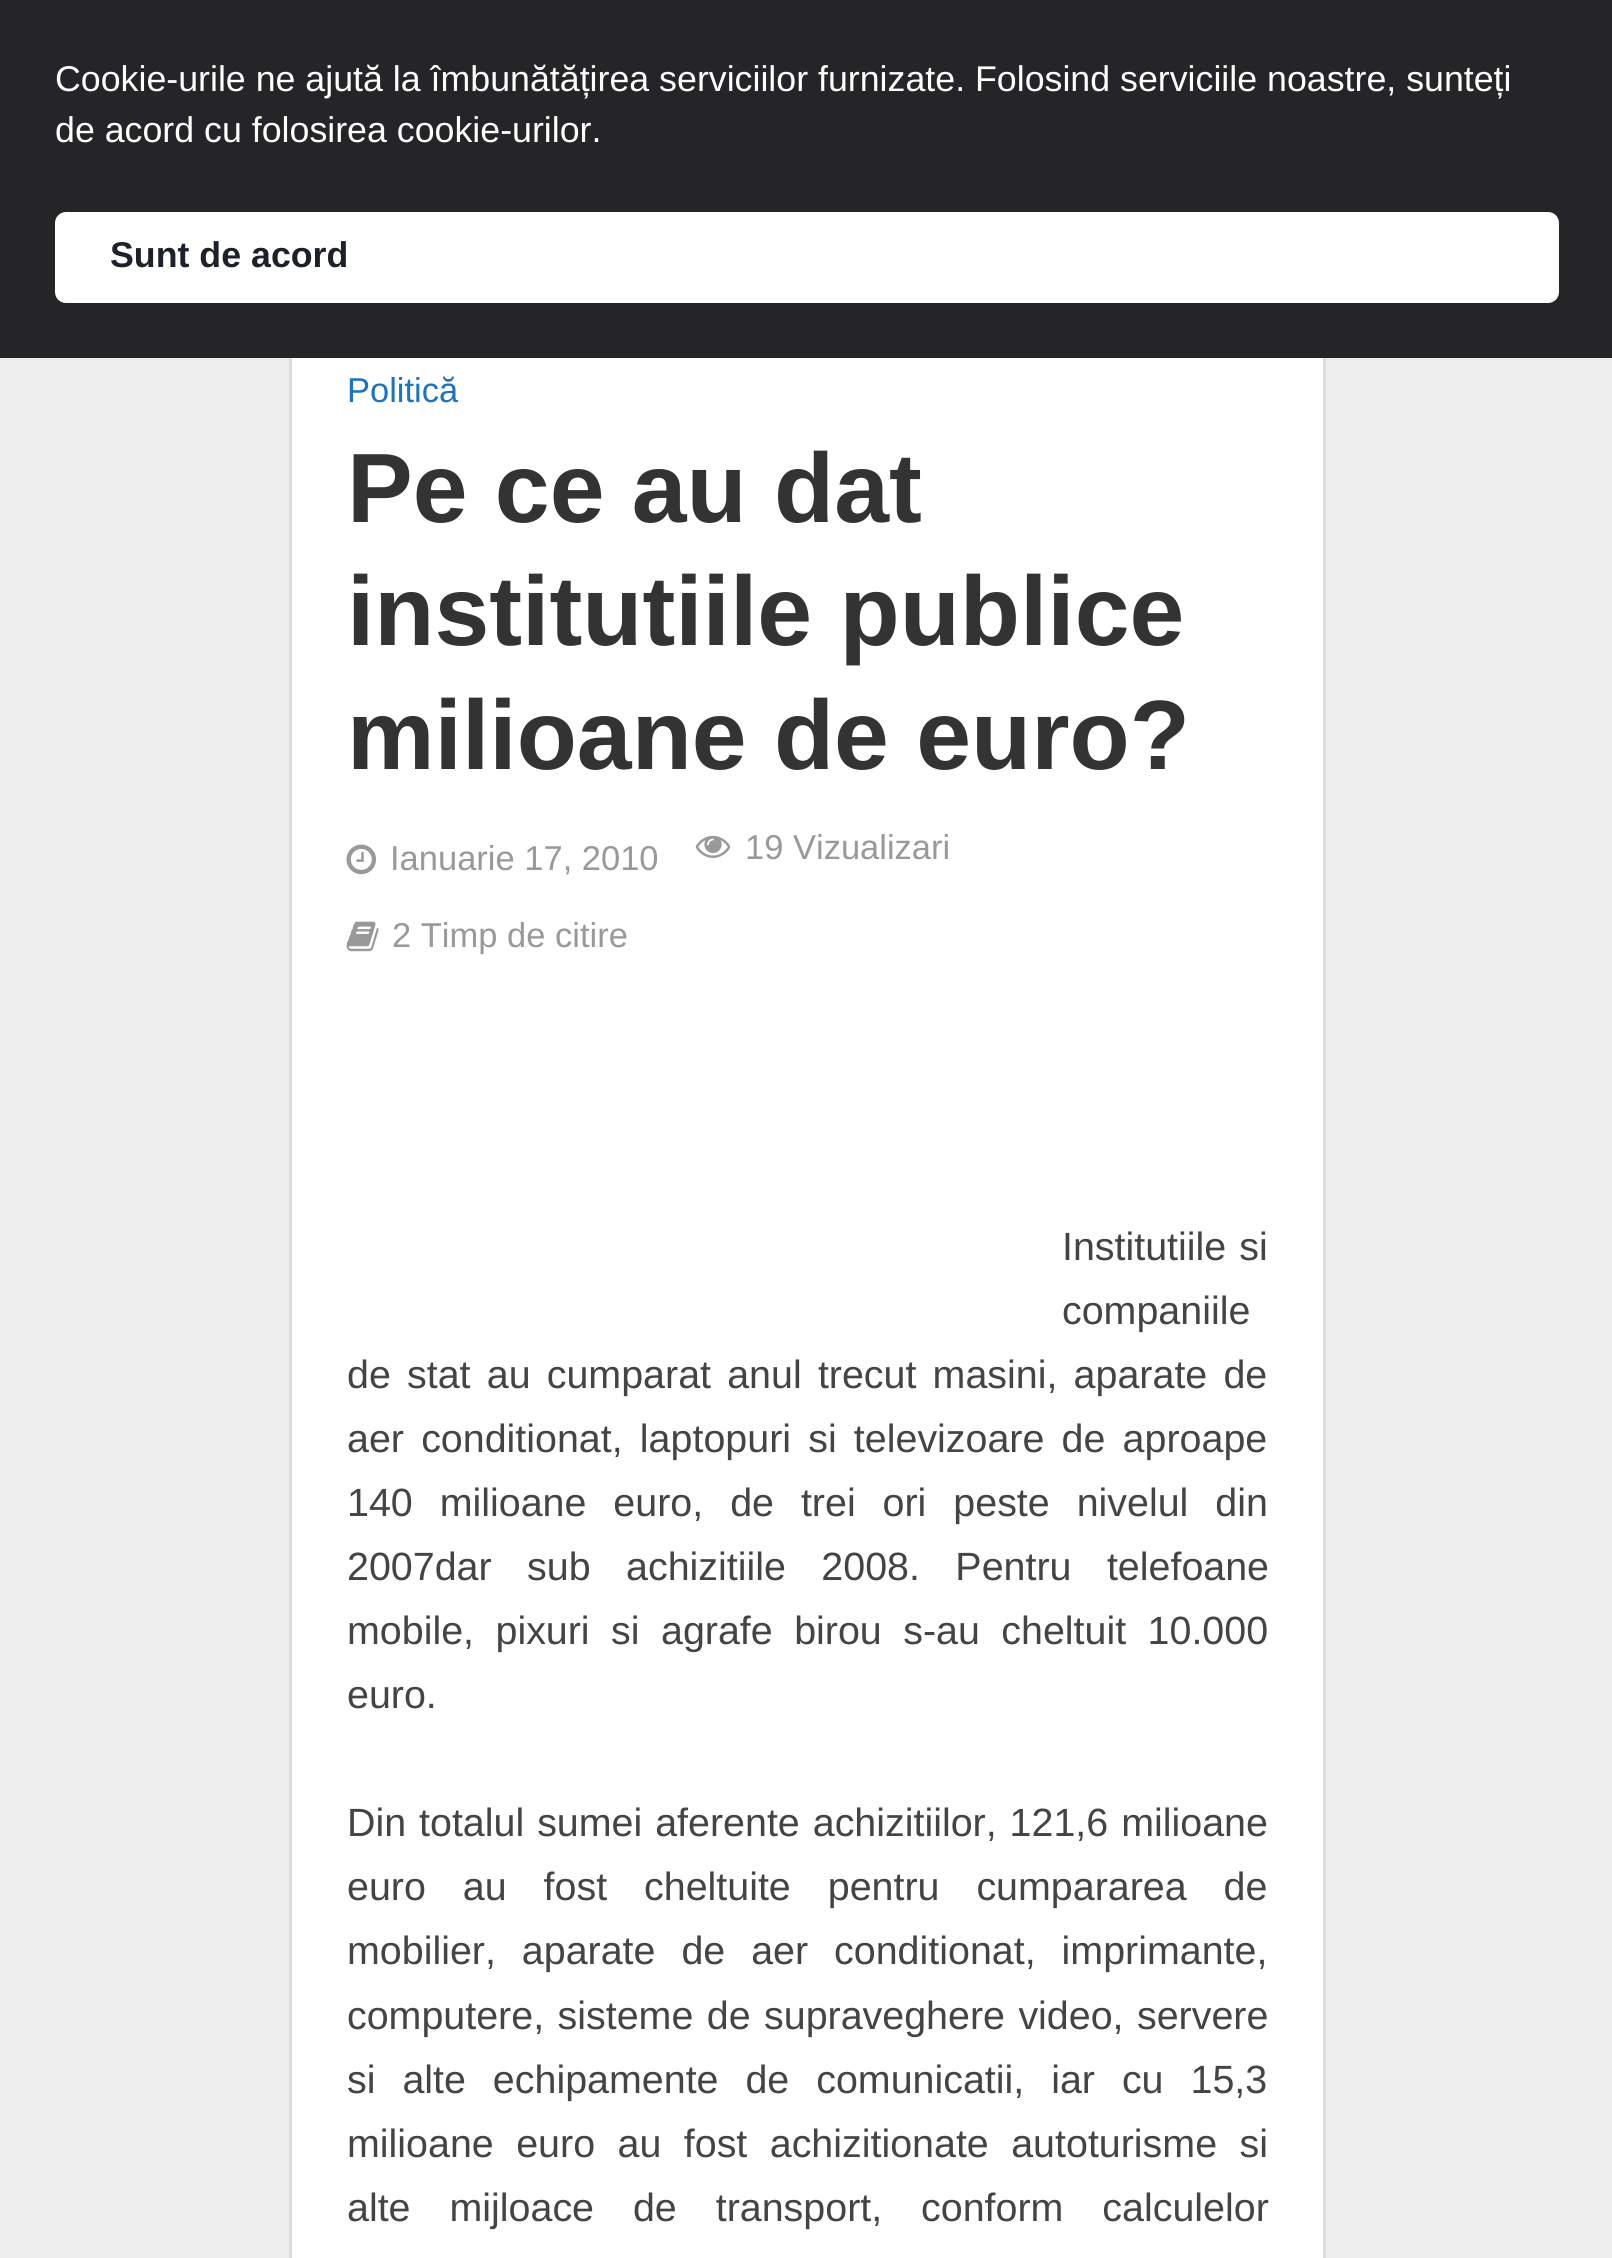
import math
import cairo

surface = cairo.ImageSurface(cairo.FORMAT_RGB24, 1612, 2258)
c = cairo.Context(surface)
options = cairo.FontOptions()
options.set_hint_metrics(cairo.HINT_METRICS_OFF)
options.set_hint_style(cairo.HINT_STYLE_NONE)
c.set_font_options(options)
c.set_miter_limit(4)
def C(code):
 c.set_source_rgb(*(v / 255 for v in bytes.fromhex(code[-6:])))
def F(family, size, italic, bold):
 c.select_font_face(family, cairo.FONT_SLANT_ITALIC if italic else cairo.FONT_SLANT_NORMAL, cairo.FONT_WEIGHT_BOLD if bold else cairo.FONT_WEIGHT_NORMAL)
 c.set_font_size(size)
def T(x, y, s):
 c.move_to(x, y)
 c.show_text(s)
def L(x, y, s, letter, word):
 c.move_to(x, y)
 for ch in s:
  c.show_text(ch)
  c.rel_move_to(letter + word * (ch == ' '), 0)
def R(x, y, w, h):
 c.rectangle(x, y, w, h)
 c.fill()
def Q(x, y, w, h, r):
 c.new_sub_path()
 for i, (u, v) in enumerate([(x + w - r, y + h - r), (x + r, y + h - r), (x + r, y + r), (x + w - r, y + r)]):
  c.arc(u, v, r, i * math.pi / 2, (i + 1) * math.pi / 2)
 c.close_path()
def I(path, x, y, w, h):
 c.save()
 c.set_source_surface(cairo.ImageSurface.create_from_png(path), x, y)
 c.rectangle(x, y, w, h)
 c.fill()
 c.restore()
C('eeeeee')
c.paint()
c.rectangle(290.5,312.5,1034,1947)
C('dddddd')
c.set_line_width(3)
c.stroke()
C('252528')
R(0,0,1612,358)
F('Liberation Sans',35.75,0,0)
C('ffffff')
T(55,91,'Cookie-urile ne ajută la îmbunătățirea serviciilor furnizate. Folosind serviciile noastre, sunteți')
T(55,142,'de acord cu folosirea cookie-urilor.')
Q(55,212,1504,91,11)
c.fill()
F('Liberation Sans',35.75,0,1)
C('1d2129')
T(110,267,'Sunt de acord')
C('ffffff')
R(292,358,1031,1900)
F('Liberation Sans',34.5,0,0)
C('1e73be')
T(347,402,'Politică')
F('Liberation Sans',98.5,0,1)
C('333333')
T(347,522,'Pe ce au dat')
T(347,645,'institutiile publice')
T(347,769,'milioane de euro?')
I('1.png',346,844,31,31)
F('Liberation Sans',34.5,0,0)
C('999999')
T(390,870,'Ianuarie 17, 2010')
I('2.png',695,835,36,23)
T(745,859,'19 Vizualizari')
I('3.png',346,921,33,31)
T(392,947,'2 Timp de citire')
F('Liberation Sans',39.4,0,0)
C('444444')
L(1062,1260,'Institutiile si',0,2)
T(1062,1324,'companiile')
L(347,1388,'de stat au cumparat anul trecut masini, aparate de',0,5.25)
L(347,1452,'aer conditionat, laptopuri si televizoare de aproape',0,6.25)
L(347,1516,'140 milioane euro, de trei ori peste nivelul din',0,16)
L(347,1580,'2007dar sub achizitiile 2008. Pentru telefoane',0,24.5)
L(347,1644,'mobile, pixuri si agrafe birou s-au cheltuit 10.000',0,10.5)
T(347,1708,'euro.')
L(347,1836,'Din totalul sumei aferente achizitiilor, 121,6 milioane',0,2)
L(347,1900,'euro au fost cheltuite pentru cumpararea de',0,26)
L(347,1964,'mobilier, aparate de aer conditionat, imprimante,',0,15)
L(347,2029,'computere, sisteme de supraveghere video, servere',0,2.5)
L(347,2093,'si alte echipamente de comunicatii, iar cu 15,3',0,16)
L(347,2157,'milioane euro au fost achizitionate autoturisme si',0,11.5)
L(347,2221,'alte mijloace de transport, conform calculelor',0,28)
surface.write_to_png('o.png')
